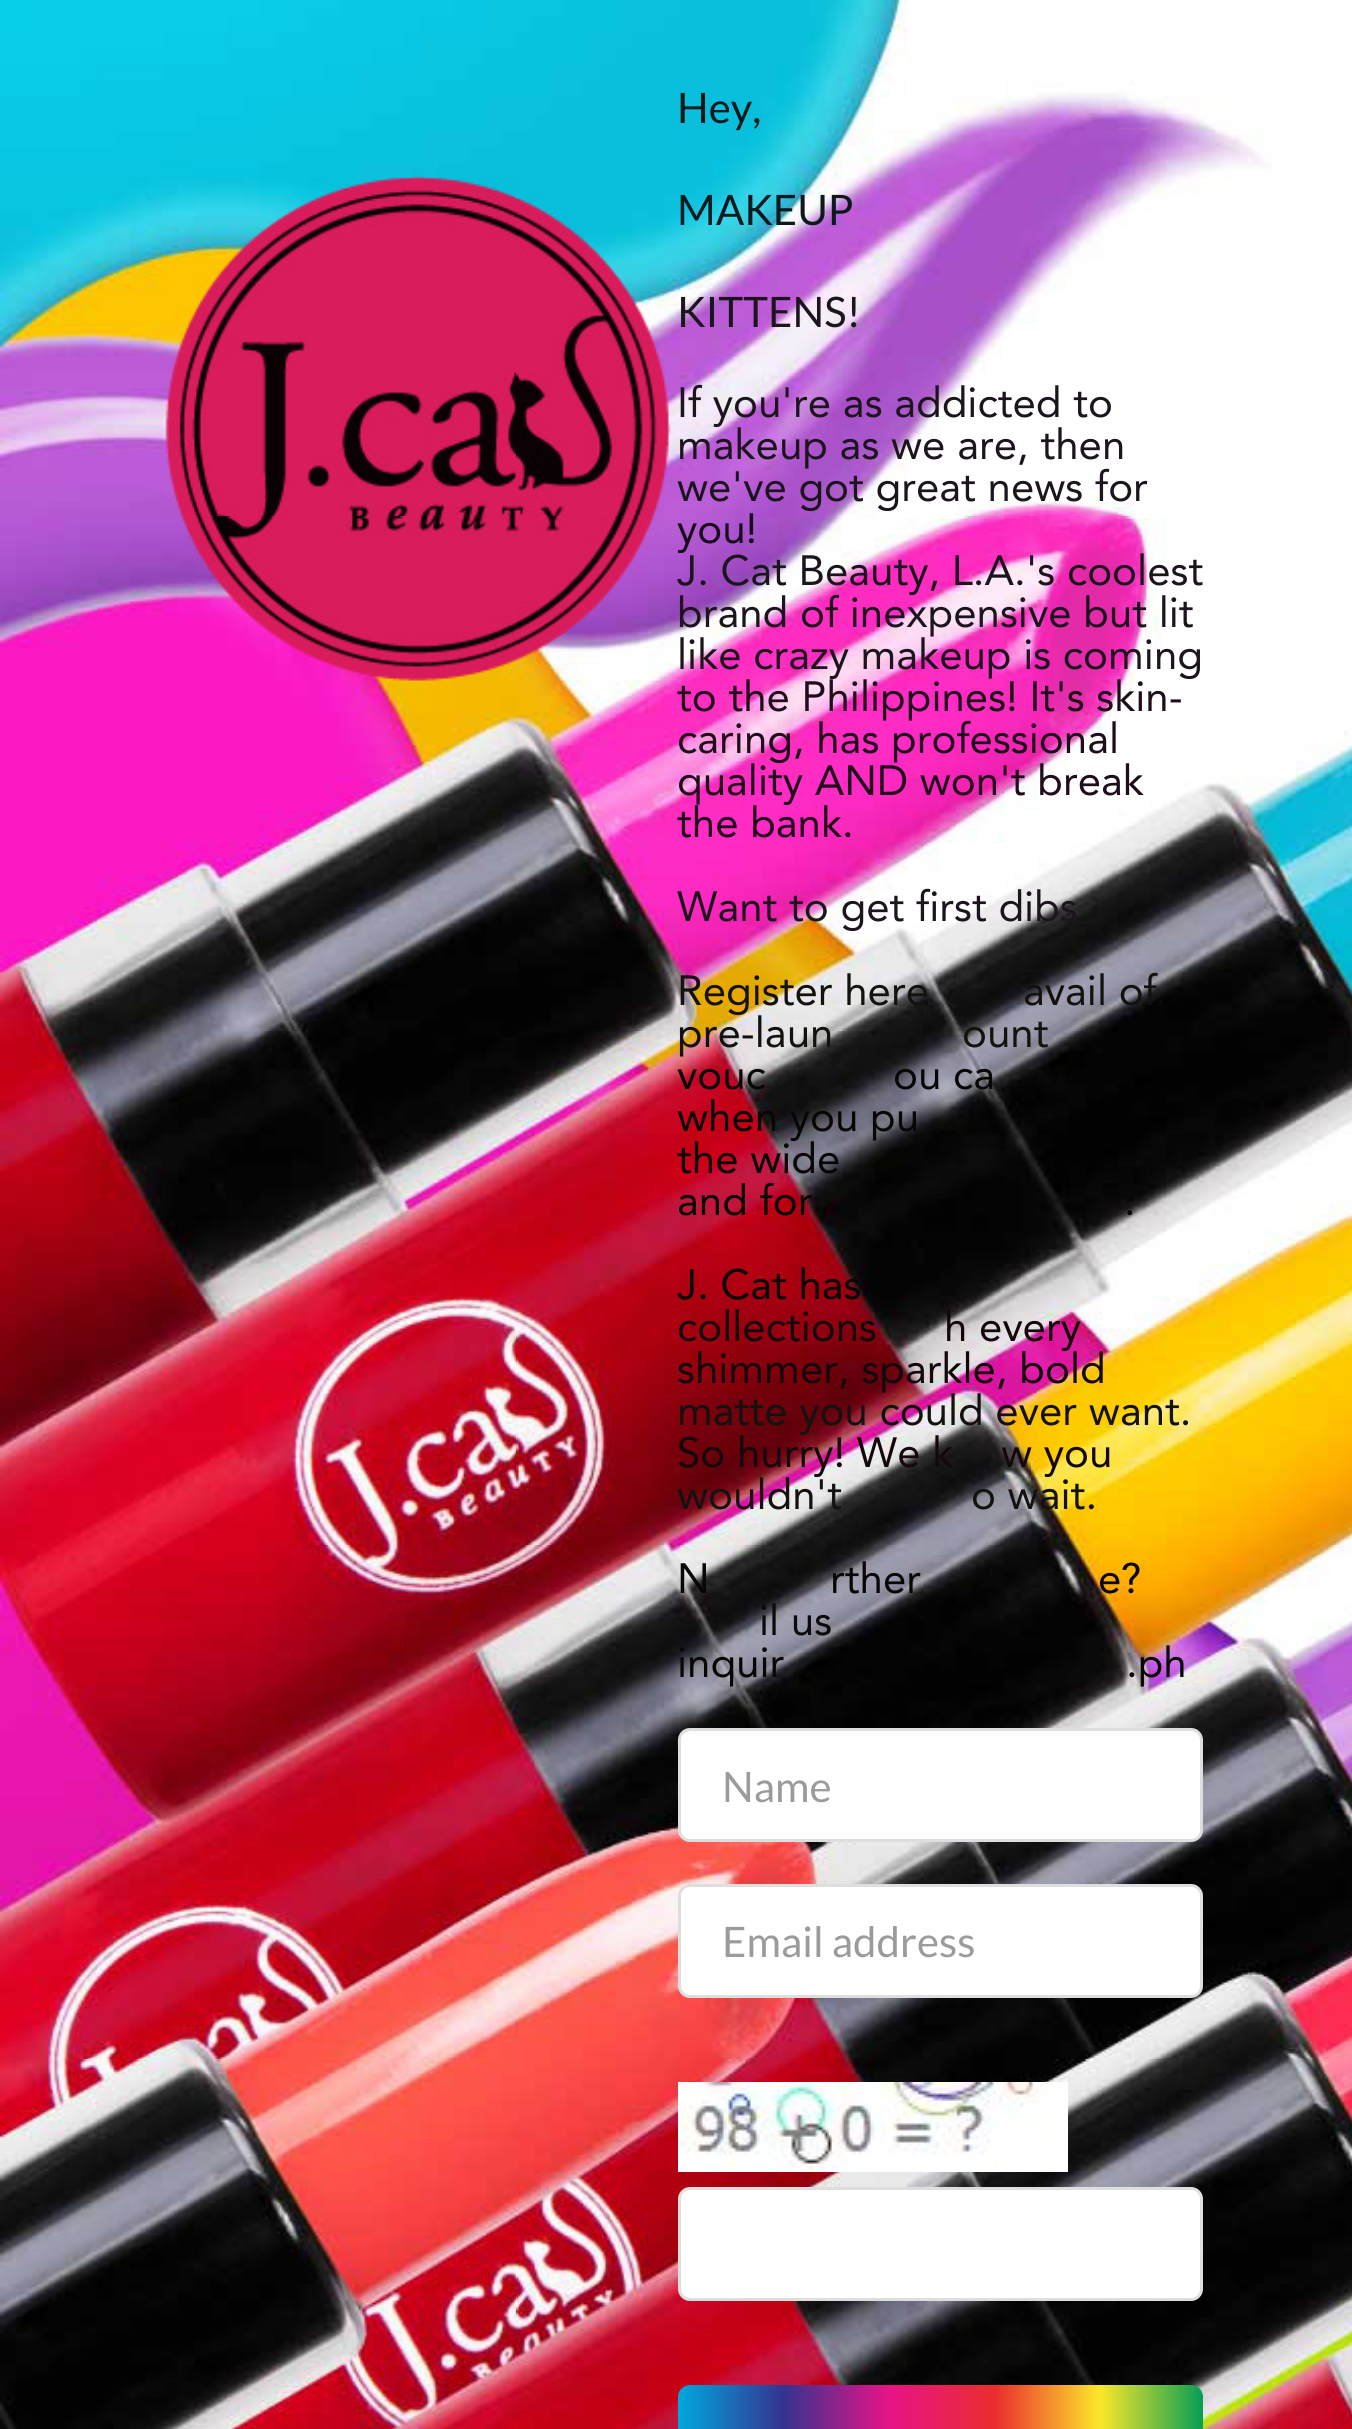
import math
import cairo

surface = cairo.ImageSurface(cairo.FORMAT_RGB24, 1352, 2429)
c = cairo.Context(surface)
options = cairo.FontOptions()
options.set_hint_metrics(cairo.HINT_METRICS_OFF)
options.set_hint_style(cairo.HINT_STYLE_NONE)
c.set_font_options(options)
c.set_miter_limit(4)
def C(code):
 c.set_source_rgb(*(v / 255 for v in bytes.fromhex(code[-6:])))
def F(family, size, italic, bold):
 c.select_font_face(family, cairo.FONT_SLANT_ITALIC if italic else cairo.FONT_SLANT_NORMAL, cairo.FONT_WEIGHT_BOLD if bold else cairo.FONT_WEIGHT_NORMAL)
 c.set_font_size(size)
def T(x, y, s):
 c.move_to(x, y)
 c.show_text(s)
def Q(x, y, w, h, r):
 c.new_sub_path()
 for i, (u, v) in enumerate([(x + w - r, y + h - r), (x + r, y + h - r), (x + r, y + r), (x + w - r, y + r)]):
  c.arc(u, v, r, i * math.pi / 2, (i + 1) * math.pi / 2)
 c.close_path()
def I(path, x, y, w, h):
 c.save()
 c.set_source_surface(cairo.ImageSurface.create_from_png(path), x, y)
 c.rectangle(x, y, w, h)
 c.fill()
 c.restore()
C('ffffff')
c.paint()
I('1.png',0,0,1352,2429)
F('Lato',42,0,0)
C('01191d')
T(677,123,'Hey,')
C('0d191d')
T(677,225,'MAKEUP')
C('1c151e')
T(677,327,'KITTENS!')
F('Avenir',42,0,0)
T(677,417,'If you\'re as addicted to')
T(677,459,'makeup as we are, then')
T(677,501,'we\'ve got great news for')
C('170b1b')
T(677,543,'you!')
C('1c151e')
T(677,585,'J. Cat Beauty, L.A.\'s coolest')
T(677,627,'brand of inexpensive but lit')
T(677,669,'like crazy makeup is coming')
C('200d1b')
T(677,711,'to the Philippines! It\'s skin-')
T(677,753,'caring, has professional')
T(677,795,'quality AND won\'t break')
C('210519')
T(677,837,'the bank.')
C('1c151e')
T(677,921,'Want to get first dibs')
C('14120e')
T(677,1005,'Register here')
T(1023,1005,'avail of')
T(677,1047,'pre-laun')
T(962,1047,'ount')
C('090606')
T(677,1089,'vouc')
T(893,1089,'ou ca')
T(677,1131,'when you pu')
T(677,1173,'the wide')
T(677,1215,'and for')
T(1124,1215,'.')
T(677,1299,'J. Cat has')
C('14080a')
T(677,1341,'collections')
T(944,1341,'h every')
T(677,1383,'shimmer, sparkle, bold')
C('14120e')
T(677,1425,'matte you could ever want.')
C('14080a')
T(677,1467,'So hurry! We k')
T(1001,1467,'w you')
C('14120e')
T(677,1509,'wouldn\'t')
T(971,1509,'o wait.')
C('090606')
T(677,1593,'N')
T(830,1593,'rther')
T(1098,1593,'e?')
C('0b0b0c')
T(759,1635,'il us')
C('090606')
T(677,1677,'inquir')
T(1126,1677,'.ph')
C('ffffff')
Q(678,1728,525,114,12)
c.fill()
Q(679.5,1729.5,522,111,10.5)
c.set_source_rgba(0.133,0.141,0.149,0.15)
c.set_line_width(3)
c.stroke()
F('Lato',42,0,0)
C('9b9b9b')
T(722,1802,'Name')
C('ffffff')
Q(678,1884,525,114,12)
c.fill()
Q(679.5,1885.5,522,111,10.5)
c.set_source_rgba(0.133,0.141,0.149,0.15)
c.stroke()
C('9b9b9b')
T(722,1957,'Email address')
I('2.png',678,2082,390,90)
C('ffffff')
Q(678,2187,525,114,12)
c.fill()
Q(679.5,2188.5,522,111,10.5)
c.set_source_rgba(0.133,0.141,0.149,0.15)
c.stroke()
I('3.png',678,2385,525,44)
surface.write_to_png('o.png')
